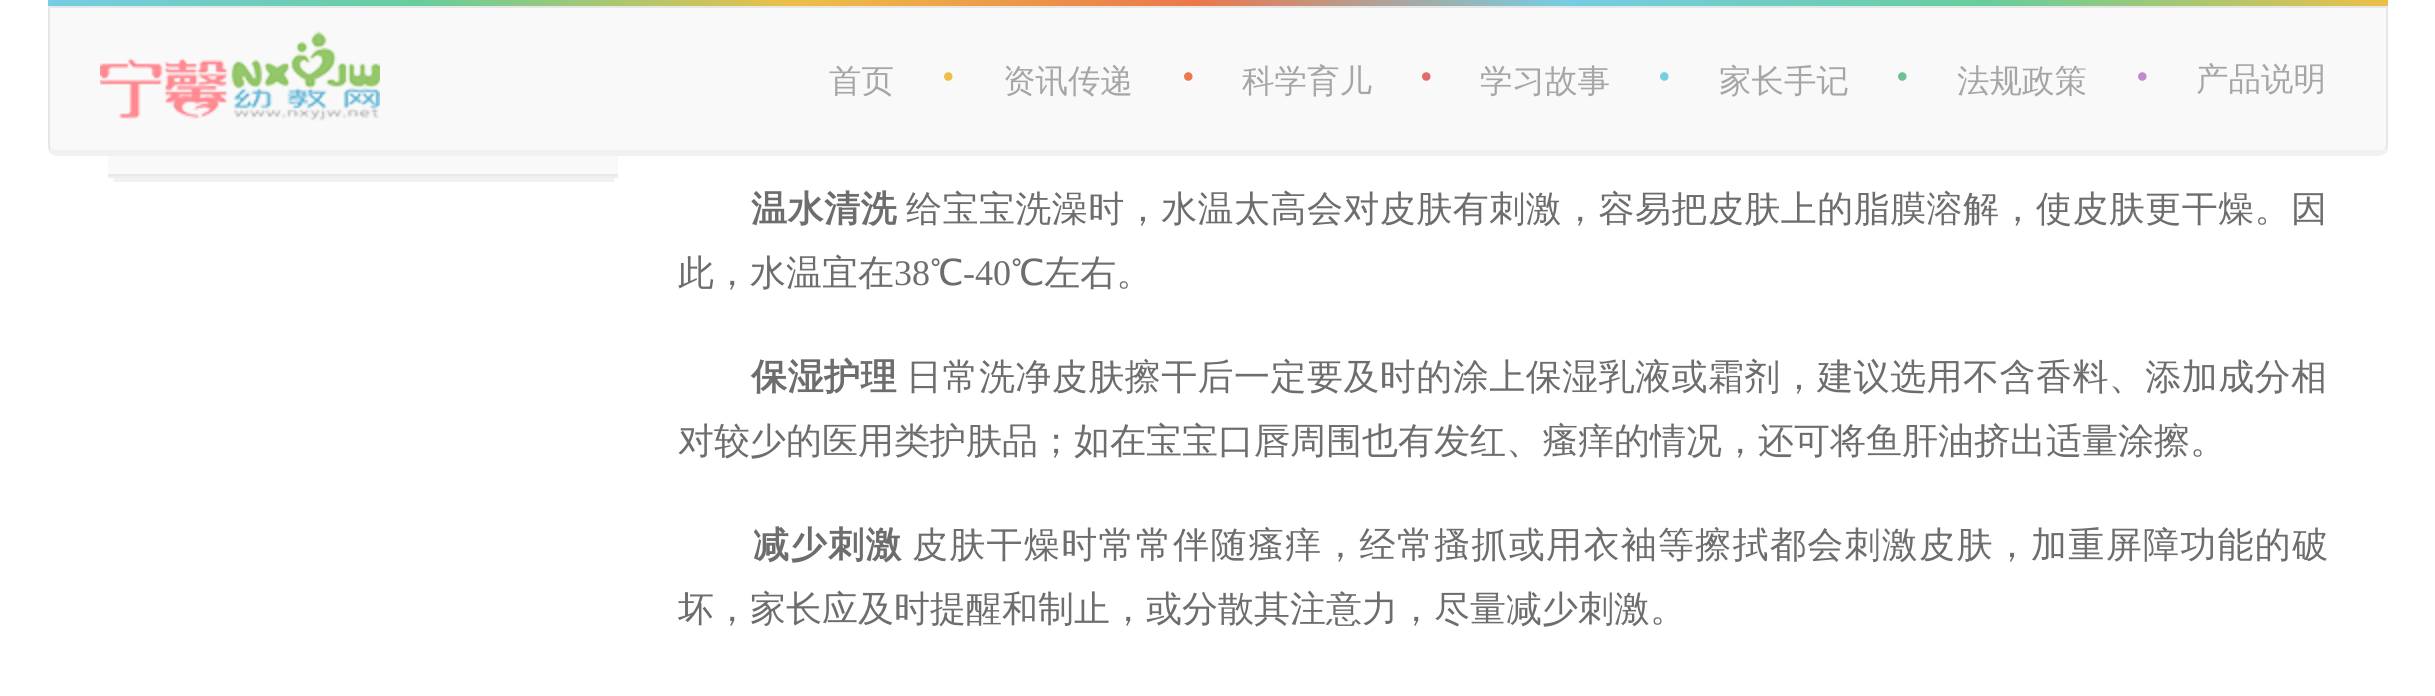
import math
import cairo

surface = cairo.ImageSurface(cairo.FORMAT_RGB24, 2435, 696)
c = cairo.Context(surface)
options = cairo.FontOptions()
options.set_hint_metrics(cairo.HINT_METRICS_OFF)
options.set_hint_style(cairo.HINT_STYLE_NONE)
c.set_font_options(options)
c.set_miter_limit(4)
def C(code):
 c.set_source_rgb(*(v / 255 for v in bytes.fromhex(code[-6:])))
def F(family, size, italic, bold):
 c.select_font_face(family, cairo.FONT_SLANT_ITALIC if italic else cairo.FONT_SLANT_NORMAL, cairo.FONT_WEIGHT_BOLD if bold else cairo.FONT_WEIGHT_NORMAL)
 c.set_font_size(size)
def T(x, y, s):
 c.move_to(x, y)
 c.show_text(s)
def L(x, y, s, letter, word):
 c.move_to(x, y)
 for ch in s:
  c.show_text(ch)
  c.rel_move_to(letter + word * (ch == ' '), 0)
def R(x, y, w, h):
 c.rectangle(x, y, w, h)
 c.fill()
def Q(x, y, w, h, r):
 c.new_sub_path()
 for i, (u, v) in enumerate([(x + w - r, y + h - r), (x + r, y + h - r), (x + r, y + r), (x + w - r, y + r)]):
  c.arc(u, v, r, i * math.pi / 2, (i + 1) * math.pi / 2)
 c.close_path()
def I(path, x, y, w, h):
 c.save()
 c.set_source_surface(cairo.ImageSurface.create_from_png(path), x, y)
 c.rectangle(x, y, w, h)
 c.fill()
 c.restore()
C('ffffff')
c.paint()
C('f9f9f9')
Q(108,-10,510,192,10)
c.fill()
gradient = cairo.LinearGradient(48,3,2388,3)
gradient.add_color_stop_rgba(0,0.455,0.808,0.894,1)
gradient.add_color_stop_rgba(.16,0.4,0.808,0.612,1)
gradient.add_color_stop_rgba(.32,0.929,0.749,0.278,1)
gradient.add_color_stop_rgba(.49,0.925,0.467,0.294,1)
gradient.add_color_stop_rgba(.65,0.455,0.808,0.894,1)
gradient.add_color_stop_rgba(.83,0.4,0.808,0.612,1)
gradient.add_color_stop_rgba(1,0.929,0.749,0.278,1)
c.set_source(gradient)
R(48,0,2340,6)
C('f9f9f9')
c.new_path()
c.move_to(50,8)
c.line_to(2386,8)
c.line_to(2386,146)
c.curve_to(2386,148,2382,150,2378,150)
c.line_to(58,150)
c.curve_to(54,150,50,148,50,146)
c.close_path()
c.fill()
C('e7e7e7')
c.new_path()
c.move_to(48,6)
c.line_to(50,8)
c.line_to(2386,8)
c.line_to(2388,6)
c.close_path()
c.fill()
c.new_path()
c.move_to(2388,6)
c.line_to(2386,8)
c.line_to(2386,146)
c.line_to(2385,148)
c.line_to(2387,152)
c.curve_to(2387,150,2388,148,2388,146)
c.close_path()
c.fill()
C('f1f1f1')
c.new_path()
c.move_to(58,156)
c.line_to(2378,156)
c.curve_to(2382,156,2385,154,2387,152)
c.line_to(2385,148)
c.curve_to(2384,149,2381,150,2378,150)
c.line_to(58,150)
c.curve_to(55,150,52,149,51,148)
c.line_to(49,152)
c.curve_to(51,154,54,156,58,156)
c.close_path()
c.fill()
C('e7e7e7')
c.new_path()
c.move_to(50,8)
c.line_to(48,6)
c.line_to(48,146)
c.curve_to(48,148,49,150,49,152)
c.line_to(51,148)
c.line_to(50,146)
c.close_path()
c.fill()
I('1.png',100,31,280,90)
F('WenQuanYi Zen Hei Medium',32.5,0,0)
C('a4a6a8')
T(829,92,'首页')
I('2.png',944,72,9,9)
T(1003,92,'资讯传递')
I('3.png',1184,72,9,9)
T(1242,92,'科学育儿')
I('4.png',1422,72,9,9)
T(1480,92,'学习故事')
I('5.png',1660,72,9,9)
T(1719,92,'家长手记')
I('6.png',1898,72,9,9)
T(1957,92,'法规政策')
I('7.png',2138,72,9,9)
T(2196,90,'产品说明')
C('f1f1f1')
R(114,178,500,4)
C('e7eaec')
R(108,174,510,2)
C('eeeeee')
R(108,176,510,2)
F('WenQuanYi Zen Hei',36,0,1)
C('6d6d6d')
L(751,221,'温水清洗',.5,0)
F('WenQuanYi Zen Hei Medium',36,0,0)
L(906,221,'给宝宝洗澡时，水温太高会对皮肤有刺激，容易把皮肤上的脂膜溶解，使皮肤更干燥。因',.45,0)
T(678,285,'此，水温宜在')
F('Liberation Serif',36,0,0)
T(894,285,'38')
F('WenQuanYi Zen Hei Medium',36,0,0)
T(930,285,'℃')
F('Liberation Serif',36,0,0)
T(963,285,'-40')
F('WenQuanYi Zen Hei Medium',36,0,0)
T(1011,285,'℃左右。')
F('WenQuanYi Zen Hei',36,0,1)
L(751,389,'保湿护理',.5,0)
F('WenQuanYi Zen Hei Medium',36,0,0)
L(906,389,'日常洗净皮肤擦干后一定要及时的涂上保湿乳液或霜剂，建议选用不含香料、添加成分相',.45,0)
T(678,453,'对较少的医用类护肤品；如在宝宝口唇周围也有发红、瘙痒的情况，还可将鱼肝油挤出适量涂擦。')
F('WenQuanYi Zen Hei',36,0,1)
L(753,557,'减少刺激',1.5,0)
F('WenQuanYi Zen Hei Medium',36,0,0)
L(912,557,'皮肤干燥时常常伴随瘙痒，经常搔抓或用衣袖等擦拭都会刺激皮肤，加重屏障功能的破',1.3,0)
T(678,621,'坏，家长应及时提醒和制止，或分散其注意力，尽量减少刺激。')
surface.write_to_png('o.png')
